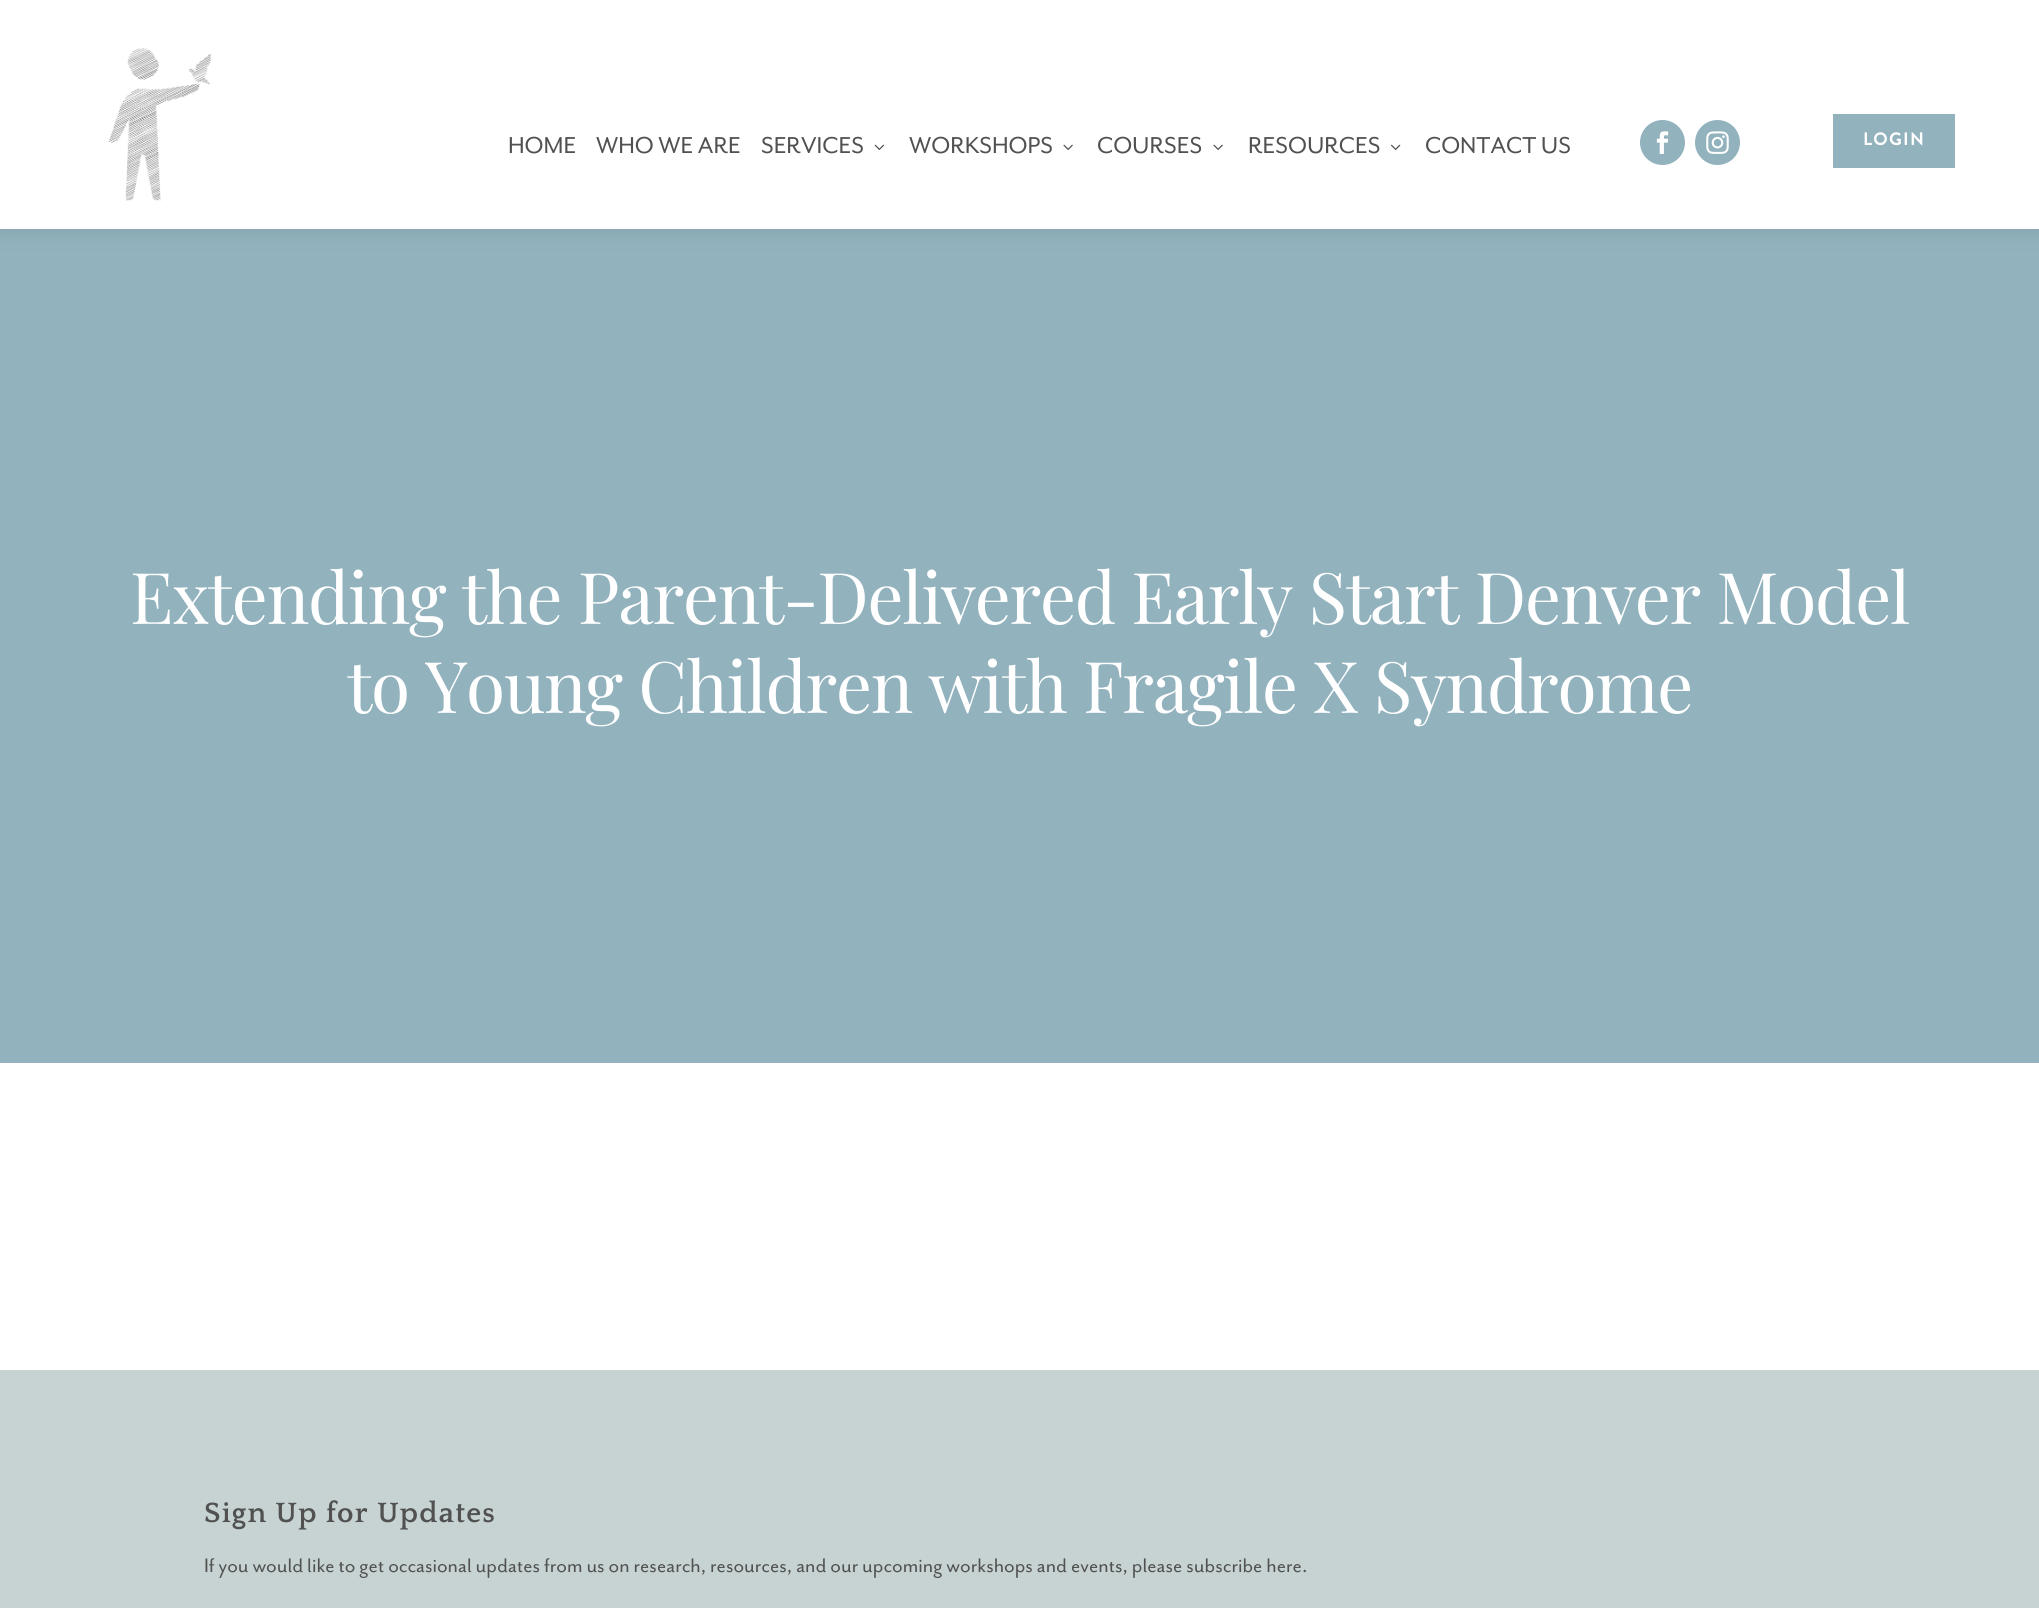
import math
import cairo

surface = cairo.ImageSurface(cairo.FORMAT_RGB24, 2039, 1608)
c = cairo.Context(surface)
options = cairo.FontOptions()
options.set_hint_metrics(cairo.HINT_METRICS_OFF)
options.set_hint_style(cairo.HINT_STYLE_NONE)
c.set_font_options(options)
c.set_miter_limit(4)
def C(code):
 c.set_source_rgb(*(v / 255 for v in bytes.fromhex(code[-6:])))
def F(family, size, italic, bold):
 c.select_font_face(family, cairo.FONT_SLANT_ITALIC if italic else cairo.FONT_SLANT_NORMAL, cairo.FONT_WEIGHT_BOLD if bold else cairo.FONT_WEIGHT_NORMAL)
 c.set_font_size(size)
def T(x, y, s):
 c.move_to(x, y)
 c.show_text(s)
def L(x, y, s, letter, word):
 c.move_to(x, y)
 for ch in s:
  c.show_text(ch)
  c.rel_move_to(letter + word * (ch == ' '), 0)
def R(x, y, w, h):
 c.rectangle(x, y, w, h)
 c.fill()
def Q(x, y, w, h, r):
 c.new_sub_path()
 for i, (u, v) in enumerate([(x + w - r, y + h - r), (x + r, y + h - r), (x + r, y + r), (x + w - r, y + r)]):
  c.arc(u, v, r, i * math.pi / 2, (i + 1) * math.pi / 2)
 c.close_path()
def S(x, y, w, h, r, blur, alpha):
 c.push_group_with_content(cairo.CONTENT_ALPHA)
 c.set_operator(cairo.OPERATOR_SOURCE)
 for i in range(15, -16, -2):
  e = blur * i / 6
  if min(w, h) + 2 * e > 0:
   c.set_source_rgba(0, 0, 0, alpha * math.erfc((i - 1) / 8.5) / 2)
   Q(x - e, y - e, w + 2 * e, h + 2 * e, max(0, min(r + e + blur * .6, min(w, h) / 2 + e)))
   c.fill()
 c.mask(c.pop_group())
def I(path, x, y, w, h):
 c.save()
 c.set_source_surface(cairo.ImageSurface.create_from_png(path), x, y)
 c.rectangle(x, y, w, h)
 c.fill()
 c.restore()
C('ffffff')
c.paint()
C('92b2bd')
R(0,229,2039,834)
C('000000')
S(0,3,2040,228,0,11,.09)
C('ffffff')
R(0,0,2039,229)
I('1.png',108,47,104,154)
F('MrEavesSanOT',26.5,0,0)
C('515151')
T(508,153,'HOME')
T(596,153,'WHO WE ARE')
T(761,153,'SERVICES')
I('2.png',874,144,10,6)
T(909,153,'WORKSHOPS')
I('3.png',1063,144,10,6)
T(1097,153,'COURSES')
I('3.png',1213,144,10,6)
T(1248,153,'RESOURCES')
I('4.png',1391,144,10,6)
T(1425,153,'CONTACT US')
C('92b2bd')
c.new_path()
c.arc(1662.5,142.5,22.5,0,2 * math.pi)
c.fill()
I('5.png',1656,131,13,23)
c.arc(1717.5,142.5,22.5,0,2 * math.pi)
c.fill()
I('6.png',1706,131,23,23)
R(1833,114,122,54)
F('Brandon Grotesque',18,0,1)
C('ffffff')
L(1863,145,'LOGIN',1.25,0)
F('Playfair Display',71.25,0,0)
L(130,624,'Extending the Parent-Delivered Early Start Denver Model',-1.25,0)
L(347,713,'to Young Children with Fragile X Syndrome',-1.25,0)
C('c6d3d2')
R(0,1370,2039,238)
F('Quattrocento',29.25,0,1)
C('515151')
L(204,1522,'Sign Up for Updates',1.25,0)
F('MrEavesSanOT',22.5,0,0)
T(204,1572,'If you would like to get occasional updates from us on research, resources, and our upcoming workshops and events, please subscribe here.')
surface.write_to_png('o.png')
